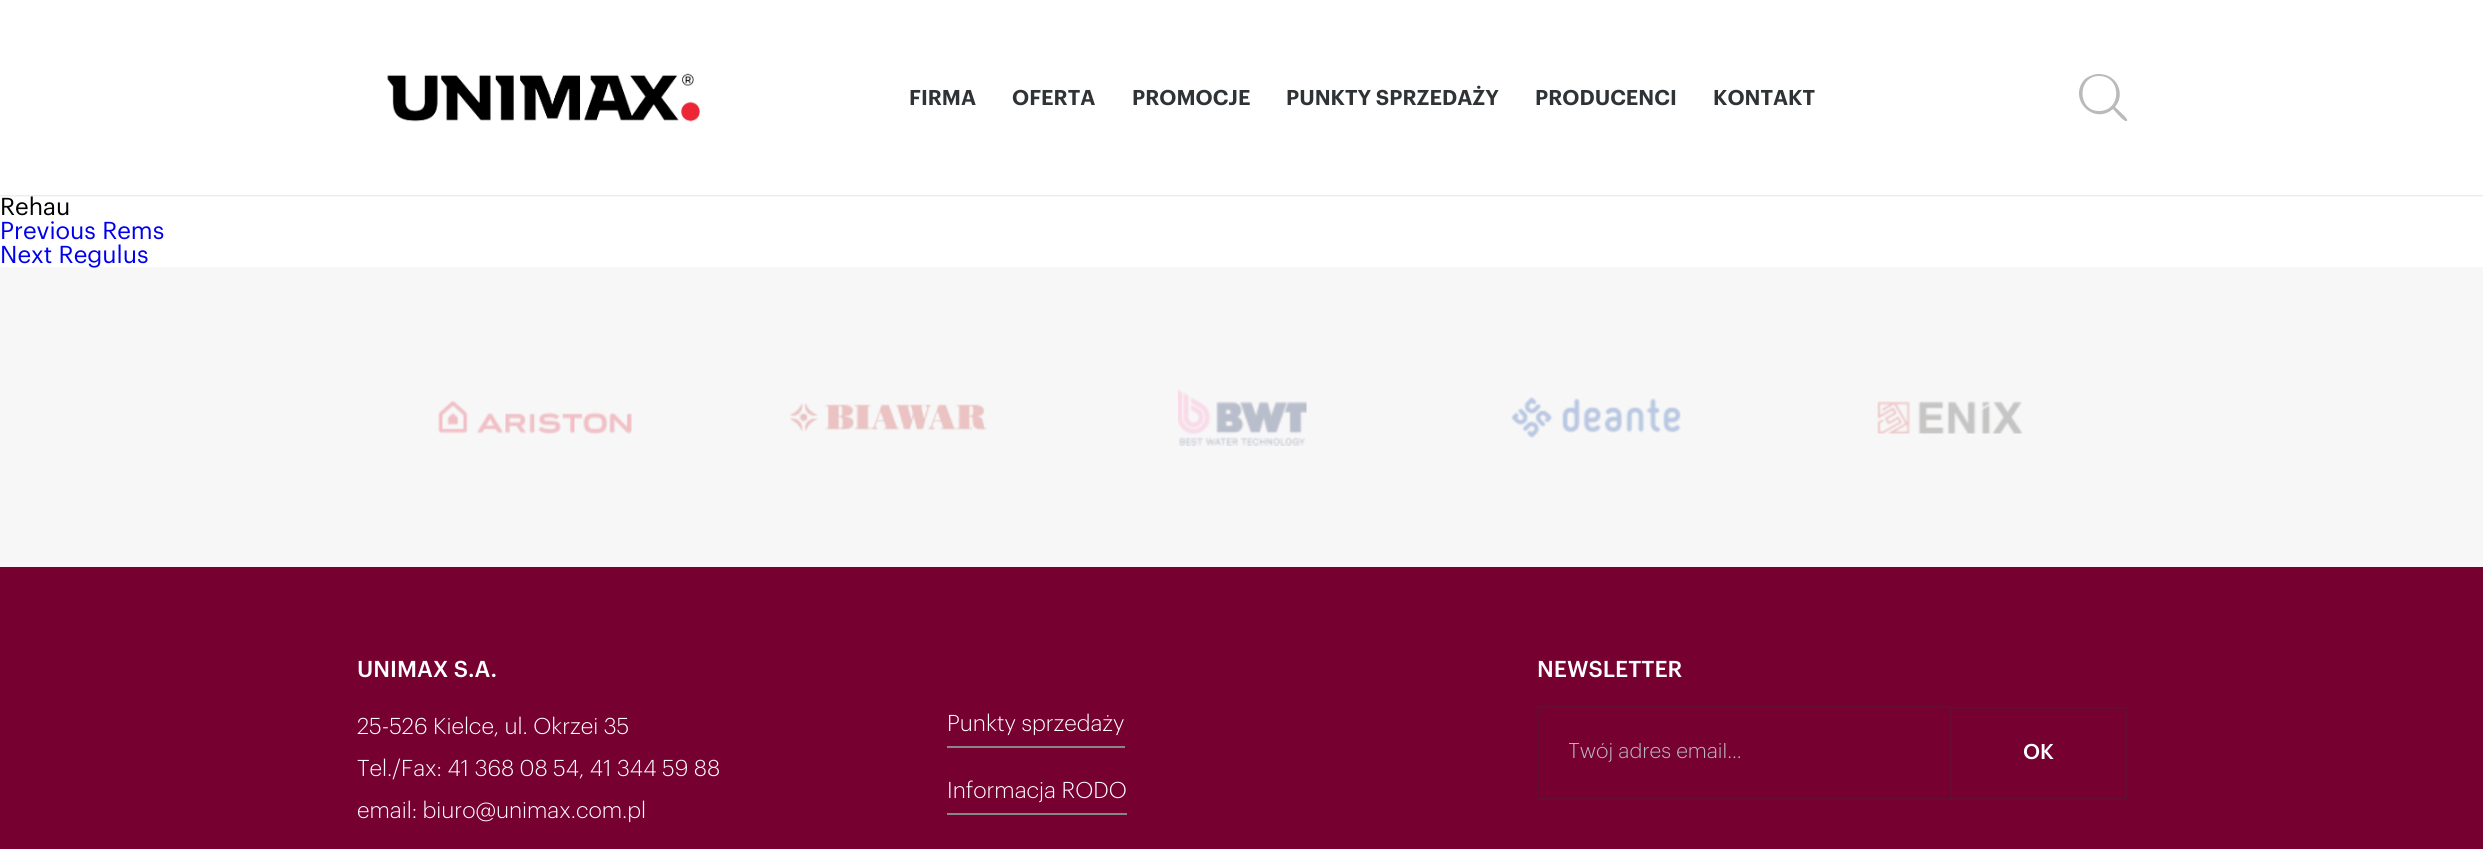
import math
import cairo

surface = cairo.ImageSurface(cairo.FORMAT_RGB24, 2483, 849)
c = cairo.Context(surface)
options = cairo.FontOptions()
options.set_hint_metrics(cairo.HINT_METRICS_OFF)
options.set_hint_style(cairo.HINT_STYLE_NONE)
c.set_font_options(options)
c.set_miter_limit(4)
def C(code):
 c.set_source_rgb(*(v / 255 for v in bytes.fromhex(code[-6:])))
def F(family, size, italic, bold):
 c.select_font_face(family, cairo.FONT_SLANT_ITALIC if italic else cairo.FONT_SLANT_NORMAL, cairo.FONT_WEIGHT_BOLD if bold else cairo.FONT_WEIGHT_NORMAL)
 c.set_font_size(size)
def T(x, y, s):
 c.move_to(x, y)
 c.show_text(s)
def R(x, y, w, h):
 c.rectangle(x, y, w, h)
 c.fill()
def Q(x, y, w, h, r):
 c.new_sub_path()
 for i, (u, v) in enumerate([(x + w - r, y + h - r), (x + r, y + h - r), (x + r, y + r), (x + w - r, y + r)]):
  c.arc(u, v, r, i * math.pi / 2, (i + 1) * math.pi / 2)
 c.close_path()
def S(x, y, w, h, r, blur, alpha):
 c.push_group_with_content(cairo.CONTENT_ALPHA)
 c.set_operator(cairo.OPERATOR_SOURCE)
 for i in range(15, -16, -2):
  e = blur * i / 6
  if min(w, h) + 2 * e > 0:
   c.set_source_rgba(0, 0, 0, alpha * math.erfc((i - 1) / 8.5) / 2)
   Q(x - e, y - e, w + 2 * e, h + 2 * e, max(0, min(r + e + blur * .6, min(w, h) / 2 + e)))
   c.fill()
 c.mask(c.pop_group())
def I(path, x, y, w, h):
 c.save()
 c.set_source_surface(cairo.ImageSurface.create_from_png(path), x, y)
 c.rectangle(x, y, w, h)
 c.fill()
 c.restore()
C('ffffff')
c.paint()
c.save()
c.rectangle(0,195,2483,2)
c.clip()
C('000000')
S(0,0,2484,195,0,1.5,.2)
c.restore()
I('1.png',387,73,313,49)
F('Graphik SemiBold',21,0,0)
C('2f3335')
T(909,105,'FIRMA')
T(1012,105,'OFERTA')
T(1132,105,'PROMOCJE')
T(1286,105,'PUNKTY SPRZEDAŻY')
T(1535,105,'PRODUCENCI')
T(1713,105,'KONTAKT')
C('b8babc')
c.new_path()
c.move_to(2099,74)
c.curve_to(2094,74,2089,76,2085,79)
c.curve_to(2067,98,2093,126,2113,109)
c.curve_to(2115,111,2124,122,2126,121)
c.curve_to(2131,121,2120,112,2115,107)
c.curve_to(2126,94,2117,74,2099,74)
c.close_path()
c.move_to(2099,76)
c.curve_to(2122,76,2122,111,2099,111)
c.curve_to(2077,111,2077,76,2099,76)
c.close_path()
c.fill()
F('Graphik',24,0,0)
C('000000')
T(0,215,'Rehau')
C('0000ee')
T(0,239,'Previous Rems')
C('f7f7f7')
R(0,267,2483,300)
C('0000ee')
T(0,263,'Next Regulus')
I('2.png',438,400,194,34)
I('3.png',790,403,197,29)
I('4.png',1178,389,129,57)
I('5.png',1511,397,170,41)
I('6.png',1877,401,146,33)
C('760030')
R(0,567,2483,282)
F('Graphik Medium',22.5,0,0)
C('ffffff')
T(357,677,'UNIMAX S.A.')
F('Graphik Light',22.5,0,0)
T(357,734,'25-526 Kielce, ul. Okrzei 35')
T(357,776,'Tel./Fax: 41 368 08 54, 41 344 59 88')
T(357,818,'email: biuro@unimax.com.pl')
T(947,731,'Punkty sprzedaży')
C('878787')
R(947,746,178,2)
C('ffffff')
T(947,798,'Informacja RODO')
C('878787')
R(947,813,180,2)
F('Graphik Medium',22.5,0,0)
C('ffffff')
T(1537,677,'NEWSLETTER')
C('640d31')
c.new_path()
c.move_to(1538,706)
c.line_to(1950,706)
c.line_to(1950,708)
c.line_to(1539,708)
c.close_path()
c.fill()
c.new_path()
c.move_to(1950,800)
c.line_to(1538,800)
c.line_to(1539,798)
c.line_to(1950,798)
c.close_path()
c.fill()
c.set_source_rgba(0.184,0.2,0.208,0.25)
c.new_path()
c.move_to(1538,800)
c.line_to(1538,706)
c.line_to(1539,708)
c.line_to(1539,798)
c.close_path()
c.fill()
c.save()
c.rectangle(1569,743,351,22)
c.clip()
F('Graphik Light',21,0,0)
C('b8babc')
T(1568,758,'Twój adres email...')
c.restore()
c.rectangle(1951,708,175,91)
C('640d31')
c.stroke()
F('Graphik Medium',21,0,0)
C('ffffff')
T(2023,759,'OK')
surface.write_to_png('o.png')
